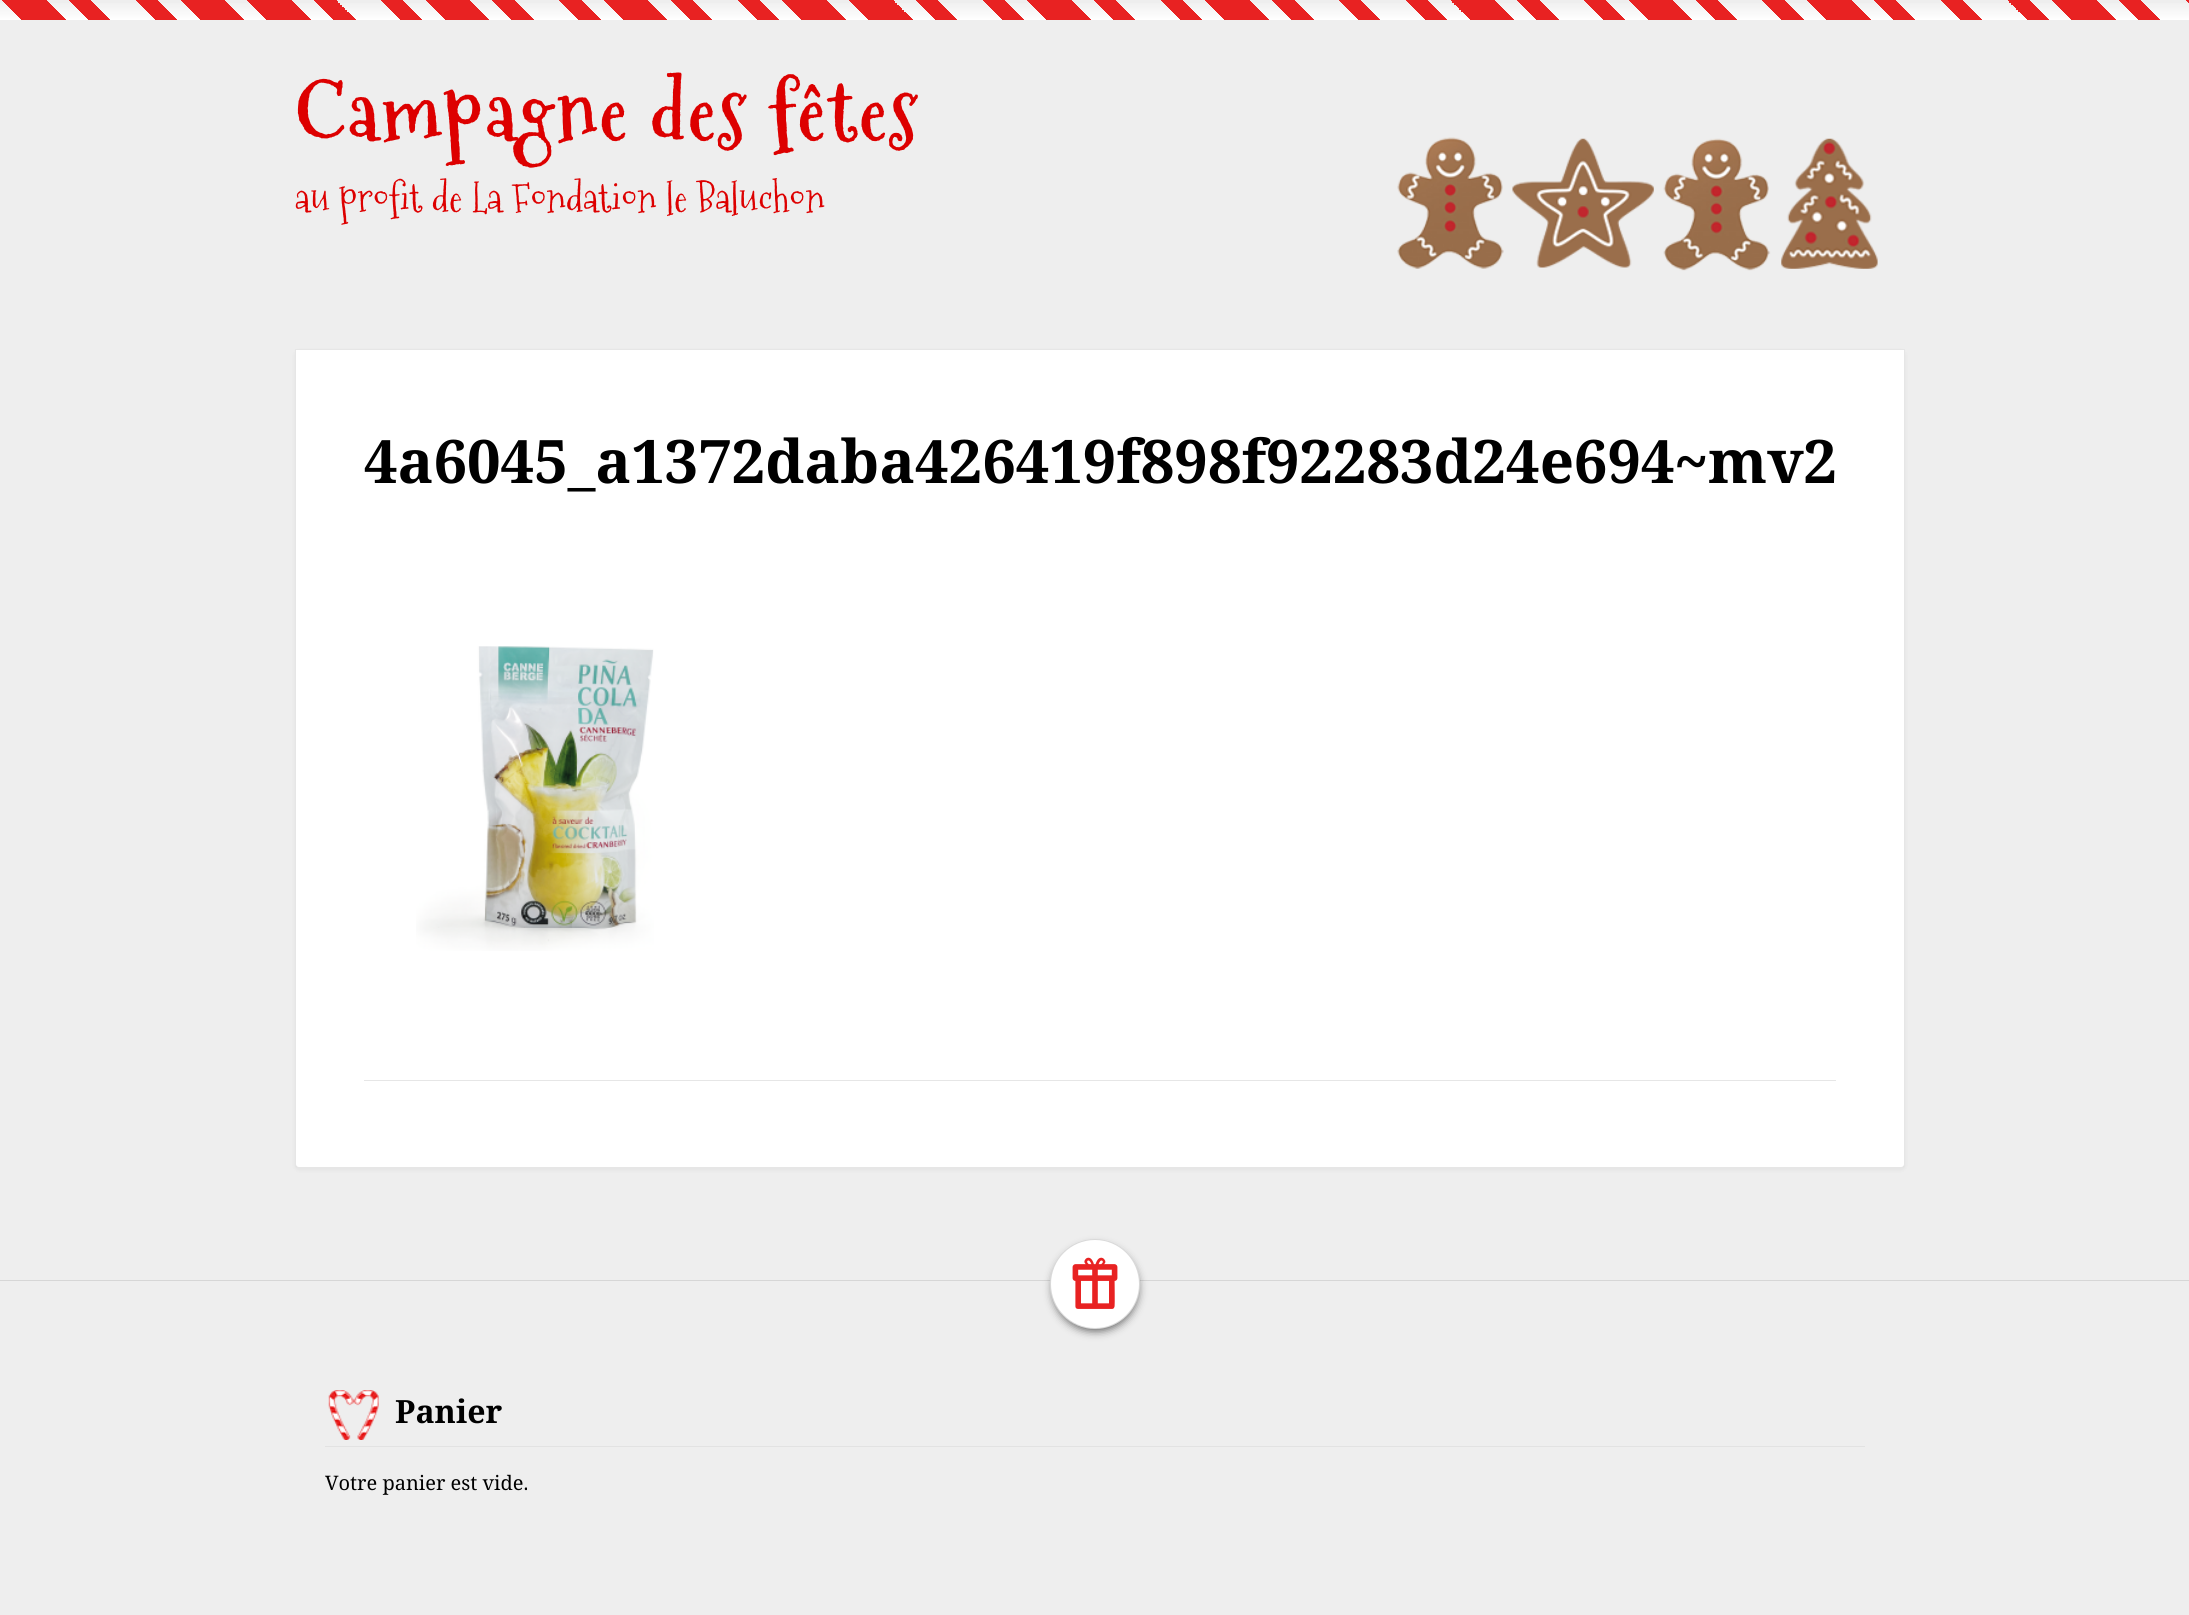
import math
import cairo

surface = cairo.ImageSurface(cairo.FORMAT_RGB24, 2189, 1615)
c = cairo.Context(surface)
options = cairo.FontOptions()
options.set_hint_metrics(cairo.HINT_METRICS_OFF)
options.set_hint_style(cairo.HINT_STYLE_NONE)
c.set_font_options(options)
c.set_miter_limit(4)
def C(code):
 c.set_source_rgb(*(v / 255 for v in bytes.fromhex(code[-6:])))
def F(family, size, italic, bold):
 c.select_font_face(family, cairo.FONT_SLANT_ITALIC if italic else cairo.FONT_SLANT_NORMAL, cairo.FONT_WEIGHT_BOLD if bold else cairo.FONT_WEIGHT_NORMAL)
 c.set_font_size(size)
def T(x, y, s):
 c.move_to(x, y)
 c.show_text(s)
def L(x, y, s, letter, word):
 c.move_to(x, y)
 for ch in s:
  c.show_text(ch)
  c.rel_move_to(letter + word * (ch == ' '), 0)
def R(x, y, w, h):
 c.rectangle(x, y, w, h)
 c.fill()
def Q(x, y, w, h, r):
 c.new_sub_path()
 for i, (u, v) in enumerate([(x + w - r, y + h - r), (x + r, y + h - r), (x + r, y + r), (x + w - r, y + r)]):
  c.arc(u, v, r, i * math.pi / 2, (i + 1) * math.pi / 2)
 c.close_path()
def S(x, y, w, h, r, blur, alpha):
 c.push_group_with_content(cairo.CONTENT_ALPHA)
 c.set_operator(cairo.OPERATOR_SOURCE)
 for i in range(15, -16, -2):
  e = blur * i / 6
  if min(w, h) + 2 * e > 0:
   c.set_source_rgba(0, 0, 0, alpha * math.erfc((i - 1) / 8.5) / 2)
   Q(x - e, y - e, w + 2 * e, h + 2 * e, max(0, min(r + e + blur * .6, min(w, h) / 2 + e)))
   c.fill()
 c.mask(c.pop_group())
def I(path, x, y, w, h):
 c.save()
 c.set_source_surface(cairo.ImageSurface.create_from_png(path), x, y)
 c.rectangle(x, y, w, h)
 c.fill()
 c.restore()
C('eeeeee')
c.paint()
gradient = cairo.LinearGradient(1095,0,1095,20)
gradient.add_color_stop_rgba(0,0.933,0.933,0.933,1)
gradient.add_color_stop_rgba(1,1,1,1,1)
c.set_source(gradient)
R(0,3,2189,17)
gradient = cairo.LinearGradient(543,563,1656,-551)
gradient.add_color_stop_rgba(0,0,0,0,0)
gradient.add_color_stop_rgba(.01,0.91,0.133,0.133,0)
gradient.add_color_stop_rgba(.01,0.91,0.133,0.133,1)
gradient.add_color_stop_rgba(.02,0.91,0.133,0.133,1)
gradient.add_color_stop_rgba(.02,0.91,0.133,0.133,0)
gradient.add_color_stop_rgba(.02,0.91,0.133,0.133,0)
gradient.add_color_stop_rgba(.02,0.91,0.133,0.133,1)
gradient.add_color_stop_rgba(.03,0.91,0.133,0.133,1)
gradient.add_color_stop_rgba(.03,0.91,0.133,0.133,0)
gradient.add_color_stop_rgba(.04,0.91,0.133,0.133,0)
gradient.add_color_stop_rgba(.04,0.91,0.133,0.133,1)
gradient.add_color_stop_rgba(.05,0.91,0.133,0.133,1)
gradient.add_color_stop_rgba(.05,0.91,0.133,0.133,0)
gradient.add_color_stop_rgba(.06,0.91,0.133,0.133,0)
gradient.add_color_stop_rgba(.06,0.91,0.133,0.133,1)
gradient.add_color_stop_rgba(.06,0.91,0.133,0.133,1)
gradient.add_color_stop_rgba(.06,0.91,0.133,0.133,0)
gradient.add_color_stop_rgba(.07,0.91,0.133,0.133,0)
gradient.add_color_stop_rgba(.07,0.91,0.133,0.133,1)
gradient.add_color_stop_rgba(.08,0.91,0.133,0.133,1)
gradient.add_color_stop_rgba(.08,0.91,0.133,0.133,0)
gradient.add_color_stop_rgba(.09,0.91,0.133,0.133,0)
gradient.add_color_stop_rgba(.09,0.91,0.133,0.133,1)
gradient.add_color_stop_rgba(.1,0.91,0.133,0.133,1)
gradient.add_color_stop_rgba(.1,0.91,0.133,0.133,0)
gradient.add_color_stop_rgba(.1,0.91,0.133,0.133,0)
gradient.add_color_stop_rgba(.1,0.91,0.133,0.133,1)
gradient.add_color_stop_rgba(.11,0.91,0.133,0.133,1)
gradient.add_color_stop_rgba(.11,0.91,0.133,0.133,0)
gradient.add_color_stop_rgba(.12,0.91,0.133,0.133,0)
gradient.add_color_stop_rgba(.12,0.91,0.133,0.133,1)
gradient.add_color_stop_rgba(.13,0.91,0.133,0.133,1)
gradient.add_color_stop_rgba(.13,0.91,0.133,0.133,0)
gradient.add_color_stop_rgba(.13,0.91,0.133,0.133,0)
gradient.add_color_stop_rgba(.13,0.91,0.133,0.133,1)
gradient.add_color_stop_rgba(.14,0.91,0.133,0.133,1)
gradient.add_color_stop_rgba(.14,0.91,0.133,0.133,0)
gradient.add_color_stop_rgba(.15,0.91,0.133,0.133,0)
gradient.add_color_stop_rgba(.15,0.91,0.133,0.133,1)
gradient.add_color_stop_rgba(.16,0.91,0.133,0.133,1)
gradient.add_color_stop_rgba(.16,0.91,0.133,0.133,0)
gradient.add_color_stop_rgba(.17,0.91,0.133,0.133,0)
gradient.add_color_stop_rgba(.17,0.91,0.133,0.133,1)
gradient.add_color_stop_rgba(.17,0.91,0.133,0.133,1)
gradient.add_color_stop_rgba(.17,0.91,0.133,0.133,0)
gradient.add_color_stop_rgba(.18,0.91,0.133,0.133,0)
gradient.add_color_stop_rgba(.18,0.91,0.133,0.133,1)
gradient.add_color_stop_rgba(.19,0.91,0.133,0.133,1)
gradient.add_color_stop_rgba(.19,0.91,0.133,0.133,0)
gradient.add_color_stop_rgba(.2,0.91,0.133,0.133,0)
gradient.add_color_stop_rgba(.2,0.91,0.133,0.133,1)
gradient.add_color_stop_rgba(.21,0.91,0.133,0.133,1)
gradient.add_color_stop_rgba(.21,0.91,0.133,0.133,0)
gradient.add_color_stop_rgba(.21,0.91,0.133,0.133,0)
gradient.add_color_stop_rgba(.21,0.91,0.133,0.133,1)
gradient.add_color_stop_rgba(.22,0.91,0.133,0.133,1)
gradient.add_color_stop_rgba(.22,0.91,0.133,0.133,0)
gradient.add_color_stop_rgba(.23,0.91,0.133,0.133,0)
gradient.add_color_stop_rgba(.23,0.91,0.133,0.133,1)
gradient.add_color_stop_rgba(.24,0.91,0.133,0.133,1)
gradient.add_color_stop_rgba(.24,0.91,0.133,0.133,0)
gradient.add_color_stop_rgba(.25,0.91,0.133,0.133,0)
gradient.add_color_stop_rgba(.25,0.91,0.133,0.133,1)
gradient.add_color_stop_rgba(.25,0.91,0.133,0.133,1)
gradient.add_color_stop_rgba(.25,0.91,0.133,0.133,0)
gradient.add_color_stop_rgba(.26,0.91,0.133,0.133,0)
gradient.add_color_stop_rgba(.26,0.91,0.133,0.133,1)
gradient.add_color_stop_rgba(.27,0.91,0.133,0.133,1)
gradient.add_color_stop_rgba(.27,0.91,0.133,0.133,0)
gradient.add_color_stop_rgba(.28,0.91,0.133,0.133,0)
gradient.add_color_stop_rgba(.28,0.91,0.133,0.133,1)
gradient.add_color_stop_rgba(.29,0.91,0.133,0.133,1)
gradient.add_color_stop_rgba(.29,0.91,0.133,0.133,0)
gradient.add_color_stop_rgba(.29,0.91,0.133,0.133,0)
gradient.add_color_stop_rgba(.29,0.91,0.133,0.133,1)
gradient.add_color_stop_rgba(.3,0.91,0.133,0.133,1)
gradient.add_color_stop_rgba(.3,0.91,0.133,0.133,0)
gradient.add_color_stop_rgba(.31,0.91,0.133,0.133,0)
gradient.add_color_stop_rgba(.31,0.91,0.133,0.133,1)
gradient.add_color_stop_rgba(.32,0.91,0.133,0.133,1)
gradient.add_color_stop_rgba(.32,0.91,0.133,0.133,0)
gradient.add_color_stop_rgba(.33,0.91,0.133,0.133,0)
gradient.add_color_stop_rgba(.33,0.91,0.133,0.133,1)
gradient.add_color_stop_rgba(.33,0.91,0.133,0.133,1)
gradient.add_color_stop_rgba(.33,0.91,0.133,0.133,0)
gradient.add_color_stop_rgba(.34,0.91,0.133,0.133,0)
gradient.add_color_stop_rgba(.34,0.91,0.133,0.133,1)
gradient.add_color_stop_rgba(.35,0.91,0.133,0.133,1)
gradient.add_color_stop_rgba(.35,0.91,0.133,0.133,0)
gradient.add_color_stop_rgba(.36,0.91,0.133,0.133,0)
gradient.add_color_stop_rgba(.36,0.91,0.133,0.133,1)
gradient.add_color_stop_rgba(.37,0.91,0.133,0.133,1)
gradient.add_color_stop_rgba(.37,0.91,0.133,0.133,0)
gradient.add_color_stop_rgba(.37,0.91,0.133,0.133,0)
gradient.add_color_stop_rgba(.37,0.91,0.133,0.133,1)
gradient.add_color_stop_rgba(.38,0.91,0.133,0.133,1)
gradient.add_color_stop_rgba(.38,0.91,0.133,0.133,0)
gradient.add_color_stop_rgba(.39,0.91,0.133,0.133,0)
gradient.add_color_stop_rgba(.39,0.91,0.133,0.133,1)
gradient.add_color_stop_rgba(.4,0.91,0.133,0.133,1)
gradient.add_color_stop_rgba(.4,0.91,0.133,0.133,0)
gradient.add_color_stop_rgba(.4,0.91,0.133,0.133,0)
gradient.add_color_stop_rgba(.4,0.91,0.133,0.133,1)
gradient.add_color_stop_rgba(.41,0.91,0.133,0.133,1)
gradient.add_color_stop_rgba(.41,0.91,0.133,0.133,0)
gradient.add_color_stop_rgba(.42,0.91,0.133,0.133,0)
gradient.add_color_stop_rgba(.42,0.91,0.133,0.133,1)
gradient.add_color_stop_rgba(.43,0.91,0.133,0.133,1)
gradient.add_color_stop_rgba(.43,0.91,0.133,0.133,0)
gradient.add_color_stop_rgba(.44,0.91,0.133,0.133,0)
gradient.add_color_stop_rgba(.44,0.91,0.133,0.133,1)
gradient.add_color_stop_rgba(.44,0.91,0.133,0.133,1)
gradient.add_color_stop_rgba(.44,0.91,0.133,0.133,0)
gradient.add_color_stop_rgba(.45,0.91,0.133,0.133,0)
gradient.add_color_stop_rgba(.45,0.91,0.133,0.133,1)
gradient.add_color_stop_rgba(.46,0.91,0.133,0.133,1)
gradient.add_color_stop_rgba(.46,0.91,0.133,0.133,0)
gradient.add_color_stop_rgba(.47,0.91,0.133,0.133,0)
gradient.add_color_stop_rgba(.47,0.91,0.133,0.133,1)
gradient.add_color_stop_rgba(.48,0.91,0.133,0.133,1)
gradient.add_color_stop_rgba(.48,0.91,0.133,0.133,0)
gradient.add_color_stop_rgba(.48,0.91,0.133,0.133,0)
gradient.add_color_stop_rgba(.48,0.91,0.133,0.133,1)
gradient.add_color_stop_rgba(.49,0.91,0.133,0.133,1)
gradient.add_color_stop_rgba(.49,0.91,0.133,0.133,0)
gradient.add_color_stop_rgba(.5,0.91,0.133,0.133,0)
gradient.add_color_stop_rgba(.5,0.91,0.133,0.133,1)
gradient.add_color_stop_rgba(.51,0.91,0.133,0.133,1)
gradient.add_color_stop_rgba(.51,0.91,0.133,0.133,0)
gradient.add_color_stop_rgba(.52,0.91,0.133,0.133,0)
gradient.add_color_stop_rgba(.52,0.91,0.133,0.133,1)
gradient.add_color_stop_rgba(.52,0.91,0.133,0.133,1)
gradient.add_color_stop_rgba(.52,0.91,0.133,0.133,0)
gradient.add_color_stop_rgba(.53,0.91,0.133,0.133,0)
gradient.add_color_stop_rgba(.53,0.91,0.133,0.133,1)
gradient.add_color_stop_rgba(.54,0.91,0.133,0.133,1)
gradient.add_color_stop_rgba(.54,0.91,0.133,0.133,0)
gradient.add_color_stop_rgba(.55,0.91,0.133,0.133,0)
gradient.add_color_stop_rgba(.55,0.91,0.133,0.133,1)
gradient.add_color_stop_rgba(.56,0.91,0.133,0.133,1)
gradient.add_color_stop_rgba(.56,0.91,0.133,0.133,0)
gradient.add_color_stop_rgba(.56,0.91,0.133,0.133,0)
gradient.add_color_stop_rgba(.56,0.91,0.133,0.133,1)
gradient.add_color_stop_rgba(.57,0.91,0.133,0.133,1)
gradient.add_color_stop_rgba(.57,0.91,0.133,0.133,0)
gradient.add_color_stop_rgba(.58,0.91,0.133,0.133,0)
gradient.add_color_stop_rgba(.58,0.91,0.133,0.133,1)
gradient.add_color_stop_rgba(.59,0.91,0.133,0.133,1)
gradient.add_color_stop_rgba(.59,0.91,0.133,0.133,0)
gradient.add_color_stop_rgba(.6,0.91,0.133,0.133,0)
gradient.add_color_stop_rgba(.6,0.91,0.133,0.133,1)
gradient.add_color_stop_rgba(.6,0.91,0.133,0.133,1)
gradient.add_color_stop_rgba(.6,0.91,0.133,0.133,0)
gradient.add_color_stop_rgba(.61,0.91,0.133,0.133,0)
gradient.add_color_stop_rgba(.61,0.91,0.133,0.133,1)
gradient.add_color_stop_rgba(.62,0.91,0.133,0.133,1)
gradient.add_color_stop_rgba(.62,0.91,0.133,0.133,0)
gradient.add_color_stop_rgba(.63,0.91,0.133,0.133,0)
gradient.add_color_stop_rgba(.63,0.91,0.133,0.133,1)
gradient.add_color_stop_rgba(.63,0.91,0.133,0.133,1)
gradient.add_color_stop_rgba(.63,0.91,0.133,0.133,0)
gradient.add_color_stop_rgba(.64,0.91,0.133,0.133,0)
gradient.add_color_stop_rgba(.64,0.91,0.133,0.133,1)
gradient.add_color_stop_rgba(.65,0.91,0.133,0.133,1)
gradient.add_color_stop_rgba(.65,0.91,0.133,0.133,0)
gradient.add_color_stop_rgba(.66,0.91,0.133,0.133,0)
gradient.add_color_stop_rgba(.66,0.91,0.133,0.133,1)
gradient.add_color_stop_rgba(.67,0.91,0.133,0.133,1)
gradient.add_color_stop_rgba(.67,0.91,0.133,0.133,0)
gradient.add_color_stop_rgba(.67,0.91,0.133,0.133,0)
gradient.add_color_stop_rgba(.67,0.91,0.133,0.133,1)
gradient.add_color_stop_rgba(.68,0.91,0.133,0.133,1)
gradient.add_color_stop_rgba(.68,0.91,0.133,0.133,0)
gradient.add_color_stop_rgba(.69,0.91,0.133,0.133,0)
gradient.add_color_stop_rgba(.69,0.91,0.133,0.133,1)
gradient.add_color_stop_rgba(.7,0.91,0.133,0.133,1)
gradient.add_color_stop_rgba(.7,0.91,0.133,0.133,0)
gradient.add_color_stop_rgba(.71,0.91,0.133,0.133,0)
gradient.add_color_stop_rgba(.71,0.91,0.133,0.133,1)
gradient.add_color_stop_rgba(.71,0.91,0.133,0.133,1)
gradient.add_color_stop_rgba(.71,0.91,0.133,0.133,0)
gradient.add_color_stop_rgba(.72,0.91,0.133,0.133,0)
gradient.add_color_stop_rgba(.72,0.91,0.133,0.133,1)
gradient.add_color_stop_rgba(.73,0.91,0.133,0.133,1)
gradient.add_color_stop_rgba(.73,0.91,0.133,0.133,0)
gradient.add_color_stop_rgba(.74,0.91,0.133,0.133,0)
gradient.add_color_stop_rgba(.74,0.91,0.133,0.133,1)
gradient.add_color_stop_rgba(.75,0.91,0.133,0.133,1)
gradient.add_color_stop_rgba(.75,0.91,0.133,0.133,0)
gradient.add_color_stop_rgba(.75,0.91,0.133,0.133,0)
gradient.add_color_stop_rgba(.75,0.91,0.133,0.133,1)
gradient.add_color_stop_rgba(.76,0.91,0.133,0.133,1)
gradient.add_color_stop_rgba(.76,0.91,0.133,0.133,0)
gradient.add_color_stop_rgba(.77,0.91,0.133,0.133,0)
gradient.add_color_stop_rgba(.77,0.91,0.133,0.133,1)
gradient.add_color_stop_rgba(.78,0.91,0.133,0.133,1)
gradient.add_color_stop_rgba(.78,0.91,0.133,0.133,0)
gradient.add_color_stop_rgba(.79,0.91,0.133,0.133,0)
gradient.add_color_stop_rgba(.79,0.91,0.133,0.133,1)
gradient.add_color_stop_rgba(.79,0.91,0.133,0.133,1)
gradient.add_color_stop_rgba(.79,0.91,0.133,0.133,0)
gradient.add_color_stop_rgba(.8,0.91,0.133,0.133,0)
gradient.add_color_stop_rgba(.8,0.91,0.133,0.133,1)
gradient.add_color_stop_rgba(.81,0.91,0.133,0.133,1)
gradient.add_color_stop_rgba(.81,0.91,0.133,0.133,0)
gradient.add_color_stop_rgba(.82,0.91,0.133,0.133,0)
gradient.add_color_stop_rgba(.82,0.91,0.133,0.133,1)
gradient.add_color_stop_rgba(.83,0.91,0.133,0.133,1)
gradient.add_color_stop_rgba(.83,0.91,0.133,0.133,0)
gradient.add_color_stop_rgba(.83,0.91,0.133,0.133,0)
gradient.add_color_stop_rgba(.83,0.91,0.133,0.133,1)
gradient.add_color_stop_rgba(.84,0.91,0.133,0.133,1)
gradient.add_color_stop_rgba(.84,0.91,0.133,0.133,0)
gradient.add_color_stop_rgba(.85,0.91,0.133,0.133,0)
gradient.add_color_stop_rgba(.85,0.91,0.133,0.133,1)
gradient.add_color_stop_rgba(.86,0.91,0.133,0.133,1)
gradient.add_color_stop_rgba(.86,0.91,0.133,0.133,0)
gradient.add_color_stop_rgba(.87,0.91,0.133,0.133,0)
gradient.add_color_stop_rgba(.87,0.91,0.133,0.133,1)
gradient.add_color_stop_rgba(.87,0.91,0.133,0.133,1)
gradient.add_color_stop_rgba(.87,0.91,0.133,0.133,0)
gradient.add_color_stop_rgba(.88,0.91,0.133,0.133,0)
gradient.add_color_stop_rgba(.88,0.91,0.133,0.133,1)
gradient.add_color_stop_rgba(.89,0.91,0.133,0.133,1)
gradient.add_color_stop_rgba(.89,0.91,0.133,0.133,0)
gradient.add_color_stop_rgba(.9,0.91,0.133,0.133,0)
gradient.add_color_stop_rgba(.9,0.91,0.133,0.133,1)
gradient.add_color_stop_rgba(.9,0.91,0.133,0.133,1)
gradient.add_color_stop_rgba(.9,0.91,0.133,0.133,0)
gradient.add_color_stop_rgba(.91,0.91,0.133,0.133,0)
gradient.add_color_stop_rgba(.91,0.91,0.133,0.133,1)
gradient.add_color_stop_rgba(.92,0.91,0.133,0.133,1)
gradient.add_color_stop_rgba(.92,0.91,0.133,0.133,0)
gradient.add_color_stop_rgba(.93,0.91,0.133,0.133,0)
gradient.add_color_stop_rgba(.93,0.91,0.133,0.133,1)
gradient.add_color_stop_rgba(.94,0.91,0.133,0.133,1)
gradient.add_color_stop_rgba(.94,0.91,0.133,0.133,0)
gradient.add_color_stop_rgba(.94,0.91,0.133,0.133,0)
gradient.add_color_stop_rgba(.94,0.91,0.133,0.133,1)
gradient.add_color_stop_rgba(.95,0.91,0.133,0.133,1)
gradient.add_color_stop_rgba(.95,0.91,0.133,0.133,0)
gradient.add_color_stop_rgba(.96,0.91,0.133,0.133,0)
gradient.add_color_stop_rgba(.96,0.91,0.133,0.133,1)
gradient.add_color_stop_rgba(.97,0.91,0.133,0.133,1)
gradient.add_color_stop_rgba(.97,0.91,0.133,0.133,0)
gradient.add_color_stop_rgba(.98,0.91,0.133,0.133,0)
gradient.add_color_stop_rgba(.98,0.91,0.133,0.133,1)
gradient.add_color_stop_rgba(.98,0.91,0.133,0.133,1)
gradient.add_color_stop_rgba(.98,0.91,0.133,0.133,0)
gradient.add_color_stop_rgba(.99,0.91,0.133,0.133,0)
gradient.add_color_stop_rgba(.99,0.91,0.133,0.133,1)
gradient.add_color_stop_rgba(1,0.91,0.133,0.133,1)
c.set_source(gradient)
R(2,0,2187,20)
F('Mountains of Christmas',80,0,1)
C('dd0000')
L(295,140,'Campagne des fêtes',2.5,0)
F('Mountains of Christmas',40,0,0)
T(295,212,'au profit de La Fondation le Baluchon')
I('1.png',1397,137,481,134)
C('000000')
S(295,351,1610,819,4,2,.05)
C('ffffff')
c.new_path()
c.move_to(295,349)
c.line_to(1905,349)
c.line_to(1905,1164)
c.curve_to(1905,1166,1903,1168,1901,1168)
c.line_to(299,1168)
c.curve_to(297,1168,295,1166,295,1164)
c.close_path()
c.fill()
c.new_path()
c.move_to(295.5,349.5)
c.line_to(1904.5,349.5)
c.line_to(1904.5,1164)
c.curve_to(1904.5,1166,1903,1167.5,1901,1167.5)
c.line_to(299,1167.5)
c.curve_to(297,1167.5,295.5,1166,295.5,1164)
c.close_path()
c.set_source_rgba(0,0,0,0.1)
c.set_line_width(1)
c.stroke()
F('Noto Serif',60,0,1)
C('000000')
T(364,483,'4a6045_a1372daba426419f898f92283d24e694~mv2')
I('2.png',416,646,238,305)
C('e6e6e6')
R(364,1080,1472,1)
C('d6d6d6')
R(0,1280,2189,1)
C('000000')
S(1053,1246,85,85,42.5,4.5,.6)
C('ffffff')
c.arc(1095,1284,45,0,2 * math.pi)
c.fill()
c.arc(1095,1284,44.5,0,2 * math.pi)
c.set_source_rgba(0,0,0,0.15)
c.stroke()
I('3.png',1072,1257,46,52)
C('e2e2e2')
R(325,1446,1540,1)
I('4.png',328,1390,51,50)
F('Noto Serif',32,0,1)
C('000000')
T(395,1423,'Panier')
F('Noto Serif',20,0,0)
T(325,1490,'Votre panier est vide.')
surface.write_to_png('o.png')
